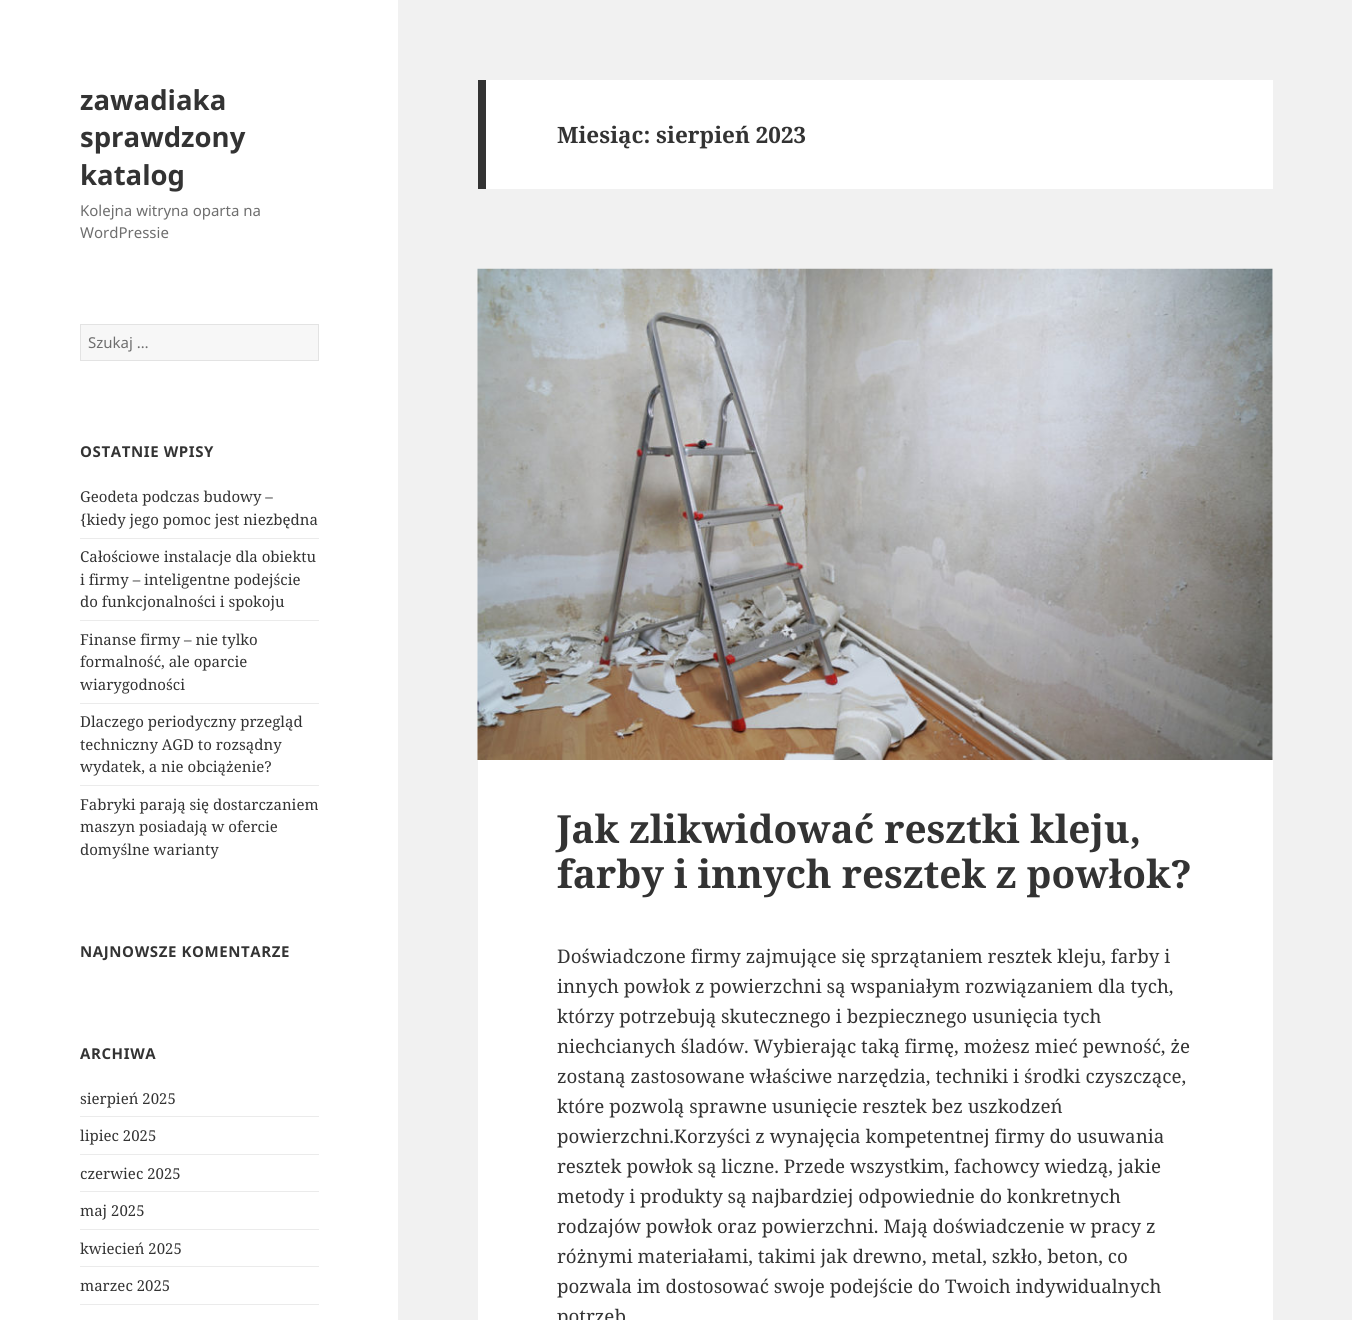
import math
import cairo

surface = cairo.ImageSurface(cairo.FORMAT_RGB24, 1352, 1320)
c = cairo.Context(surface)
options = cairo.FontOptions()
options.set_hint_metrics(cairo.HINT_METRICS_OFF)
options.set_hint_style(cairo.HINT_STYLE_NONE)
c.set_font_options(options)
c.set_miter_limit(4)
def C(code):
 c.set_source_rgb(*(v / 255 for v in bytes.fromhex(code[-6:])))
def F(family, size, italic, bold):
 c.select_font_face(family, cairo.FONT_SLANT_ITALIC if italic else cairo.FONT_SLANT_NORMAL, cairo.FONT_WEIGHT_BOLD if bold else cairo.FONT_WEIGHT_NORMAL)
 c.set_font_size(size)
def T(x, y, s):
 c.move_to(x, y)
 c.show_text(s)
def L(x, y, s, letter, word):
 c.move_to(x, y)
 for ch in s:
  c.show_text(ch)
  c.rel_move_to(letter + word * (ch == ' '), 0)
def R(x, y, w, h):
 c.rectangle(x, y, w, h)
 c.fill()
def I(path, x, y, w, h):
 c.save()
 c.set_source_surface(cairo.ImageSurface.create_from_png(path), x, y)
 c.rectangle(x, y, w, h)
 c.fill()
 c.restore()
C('f1f1f1')
c.paint()
C('ffffff')
R(0,0,398,1320)
F('Noto Sans',27.5,0,1)
C('333333')
T(80,110,'zawadiaka')
T(80,147,'sprawdzony')
T(80,185,'katalog')
F('Noto Sans',15,0,0)
C('6e6e6e')
T(80,216,'Kolejna witryna oparta na')
T(80,238,'WordPressie')
C('f7f7f7')
c.rectangle(80.5,324.5,238,36)
c.fill_preserve()
C('e3e3e3')
c.set_line_width(1)
c.stroke()
C('6e6e6e')
T(88,348,'Szukaj …')
F('Noto Sans',15,0,1)
C('333333')
L(80,457,'OSTATNIE WPISY',.6,0)
F('Noto Serif',15,0,0)
T(80,502,'Geodeta podczas budowy –')
T(80,525,'{kiedy jego pomoc jest niezbędna')
C('ebebeb')
R(80,538,239,1)
C('333333')
T(80,562,'Całościowe instalacje dla obiektu')
T(80,585,'i firmy – inteligentne podejście')
T(80,607,'do funkcjonalności i spokoju')
C('ebebeb')
R(80,620,239,1)
C('333333')
T(80,645,'Finanse firmy – nie tylko')
T(80,667,'formalność, ale oparcie')
T(80,690,'wiarygodności')
C('ebebeb')
R(80,703,239,1)
C('333333')
T(80,727,'Dlaczego periodyczny przegląd')
T(80,750,'techniczny AGD to rozsądny')
T(80,772,'wydatek, a nie obciążenie?')
C('ebebeb')
R(80,785,239,1)
C('333333')
T(80,810,'Fabryki parają się dostarczaniem')
T(80,832,'maszyn posiadają w ofercie')
T(80,855,'domyślne warianty')
F('Noto Sans',15,0,1)
L(80,957,'NAJNOWSZE KOMENTARZE',.6,0)
L(80,1059,'ARCHIWA',.6,0)
F('Noto Serif',15,0,0)
T(80,1104,'sierpień 2025')
C('ebebeb')
R(80,1116,239,1)
C('333333')
T(80,1141,'lipiec 2025')
C('ebebeb')
R(80,1154,239,1)
C('333333')
T(80,1179,'czerwiec 2025')
C('ebebeb')
R(80,1191,239,1)
C('333333')
T(80,1216,'maj 2025')
C('ebebeb')
R(80,1229,239,1)
C('333333')
T(80,1254,'kwiecień 2025')
C('ebebeb')
R(80,1266,239,1)
C('333333')
T(80,1291,'marzec 2025')
C('ebebeb')
R(80,1304,239,1)
C('ffffff')
R(486,80,787,109)
C('333333')
R(478,80,8,109)
F('Noto Serif',22.5,0,1)
T(557,143,'Miesiąc: sierpień 2023')
C('ffffff')
R(478,269,795,1051)
I('1.png',477,268,796,492)
F('Noto Serif',38.75,0,1)
C('333333')
T(557,843,'Jak zlikwidować resztki kleju,')
T(557,888,'farby i innych resztek z powłok?')
F('Noto Serif',18.75,0,0)
T(557,963,'Doświadczone firmy zajmujące się sprzątaniem resztek kleju, farby i')
T(557,993,'innych powłok z powierzchni są wspaniałym rozwiązaniem dla tych,')
T(557,1023,'którzy potrzebują skutecznego i bezpiecznego usunięcia tych')
T(557,1053,'niechcianych śladów. Wybierając taką firmę, możesz mieć pewność, że')
T(557,1083,'zostaną zastosowane właściwe narzędzia, techniki i środki czyszczące,')
T(557,1113,'które pozwolą sprawne usunięcie resztek bez uszkodzeń')
T(557,1143,'powierzchni.Korzyści z wynajęcia kompetentnej firmy do usuwania')
T(557,1173,'resztek powłok są liczne. Przede wszystkim, fachowcy wiedzą, jakie')
T(557,1203,'metody i produkty są najbardziej odpowiednie do konkretnych')
T(557,1233,'rodzajów powłok oraz powierzchni. Mają doświadczenie w pracy z')
T(557,1263,'różnymi materiałami, takimi jak drewno, metal, szkło, beton, co')
T(557,1293,'pozwala im dostosować swoje podejście do Twoich indywidualnych')
T(557,1323,'potrzeb')
surface.write_to_png('o.png')
